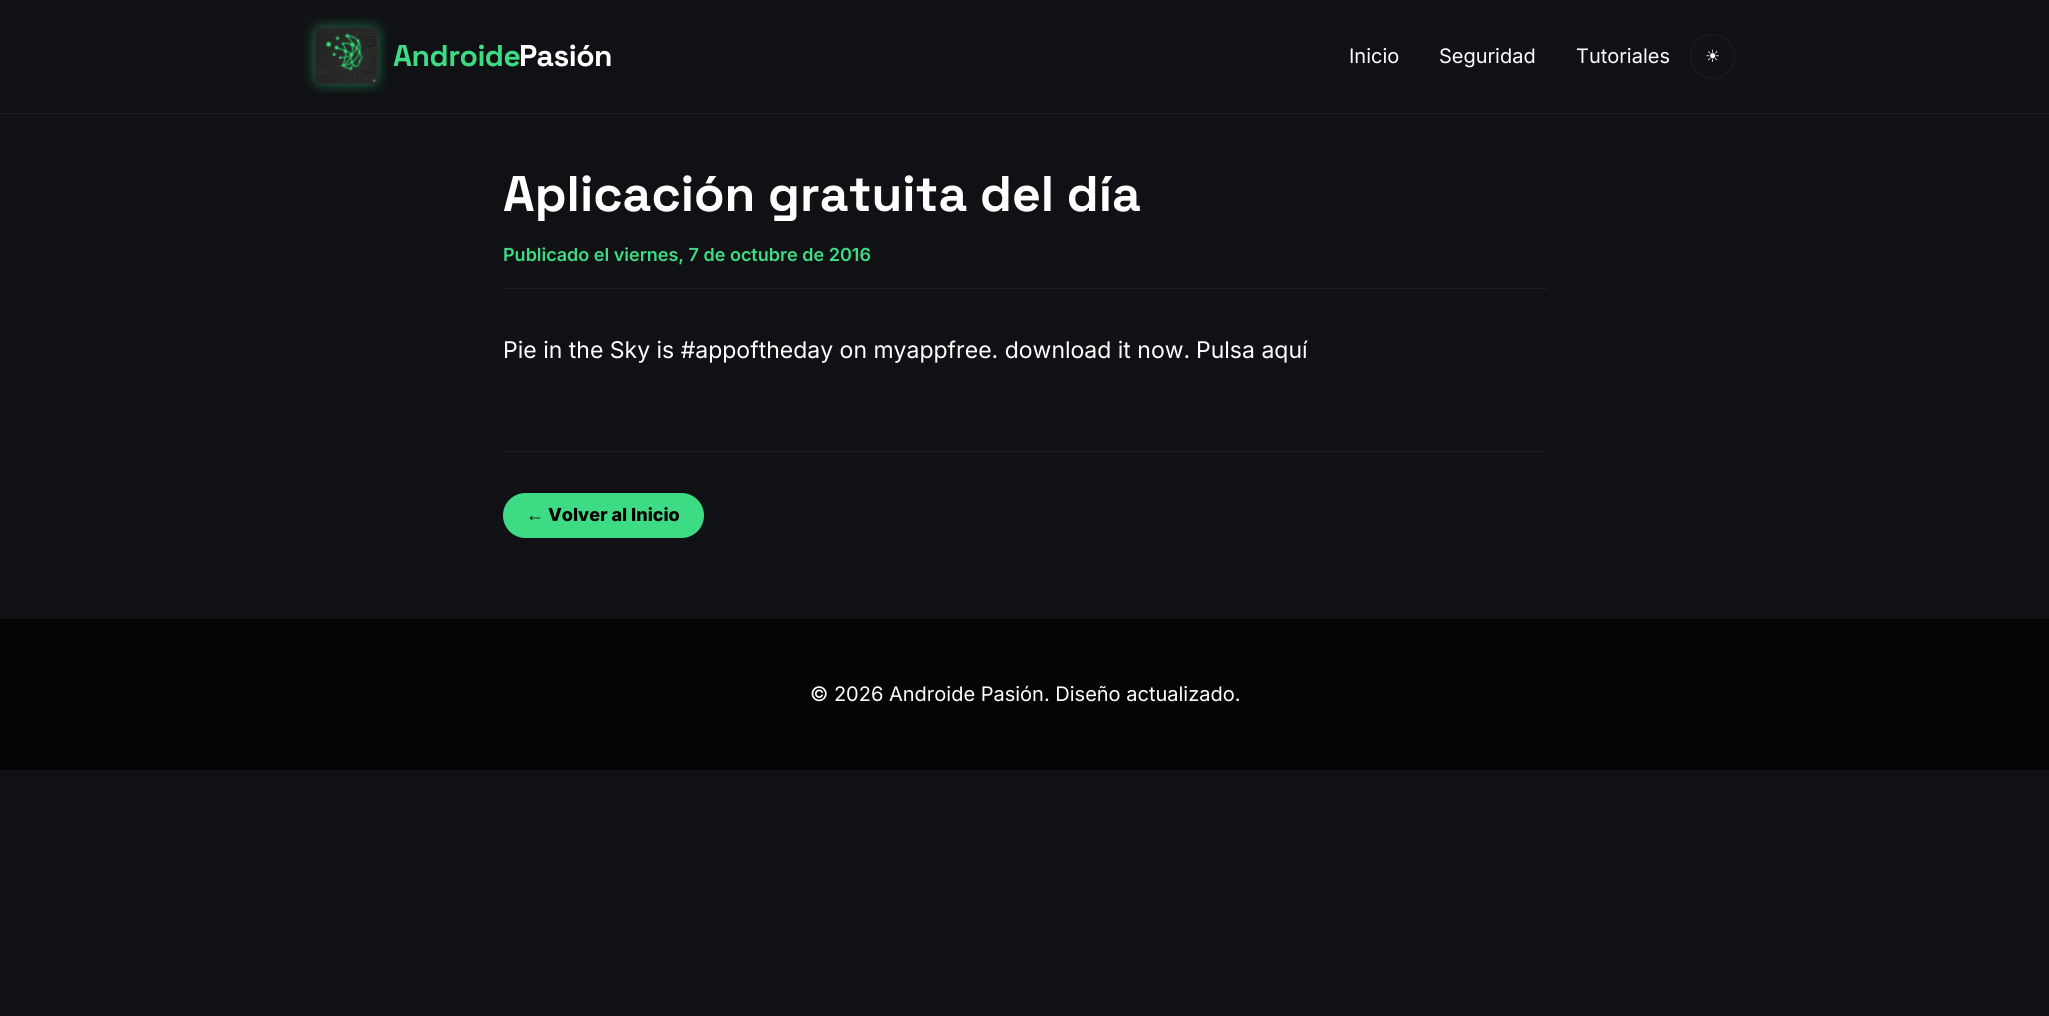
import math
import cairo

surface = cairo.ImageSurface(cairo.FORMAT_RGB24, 2049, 1016)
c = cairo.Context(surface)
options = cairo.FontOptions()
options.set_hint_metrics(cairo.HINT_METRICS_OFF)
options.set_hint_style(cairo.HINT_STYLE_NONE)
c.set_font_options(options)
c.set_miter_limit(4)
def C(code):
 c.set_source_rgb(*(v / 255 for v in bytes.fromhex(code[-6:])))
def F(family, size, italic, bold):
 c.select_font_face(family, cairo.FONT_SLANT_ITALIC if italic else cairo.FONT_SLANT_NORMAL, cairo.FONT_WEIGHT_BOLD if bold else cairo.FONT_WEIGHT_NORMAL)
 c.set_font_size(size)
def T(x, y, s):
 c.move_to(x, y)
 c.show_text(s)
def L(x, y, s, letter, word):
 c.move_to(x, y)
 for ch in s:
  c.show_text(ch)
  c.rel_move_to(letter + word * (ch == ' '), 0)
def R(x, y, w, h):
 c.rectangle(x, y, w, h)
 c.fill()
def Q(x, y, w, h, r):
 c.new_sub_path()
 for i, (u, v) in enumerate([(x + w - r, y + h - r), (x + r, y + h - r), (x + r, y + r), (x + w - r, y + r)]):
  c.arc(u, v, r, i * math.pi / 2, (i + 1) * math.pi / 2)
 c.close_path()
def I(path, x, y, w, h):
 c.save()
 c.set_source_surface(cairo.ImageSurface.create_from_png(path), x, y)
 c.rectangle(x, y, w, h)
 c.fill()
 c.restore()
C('0f1115')
c.paint()
C('1b1d21')
R(0,113,2049,1)
I('1.png',304,17,84,77)
F('Space Grotesk',30,0,1)
C('3ddc84')
L(393,66,'Androide',-.5,0)
C('ffffff')
L(519,66,'Pasión',-.5,0)
F('Inter',20,0,0)
T(1349,63,'Inicio')
T(1439,63,'Seguridad')
T(1576,63,'Tutoriales')
c.new_path()
c.arc(1712.5,56.5,22,0,2 * math.pi)
C('1b1d21')
c.set_line_width(1)
c.stroke()
F('DejaVu Sans',17,0,0)
C('ffffff')
T(1705,62,'☀')
C('1b1d21')
R(503,288,1045,1)
F('Space Grotesk',50,0,1)
C('ffffff')
T(503,211,'Aplicación gratuita del día')
F('Inter SemiBold',18,0,0)
C('3ddc84')
T(503,261,'Publicado el viernes, 7 de octubre de 2016')
F('Inter',23,0,0)
C('ffffff')
T(503,358,'Pie in the Sky is #appoftheday on myappfree. download it now.')
T(1196,358,'Pulsa aquí')
C('1b1d21')
R(503,451,1045,1)
C('3ddc84')
Q(503,493,201,45,22.5)
c.fill()
F('Liberation Sans',18,0,1)
C('000000')
T(526,521,'←')
F('Inter ExtraBold',18,0,0)
T(548,521,'Volver al Inicio')
C('050505')
R(0,619,2049,151)
C('121212')
R(0,618,2049,1)
F('Inter',20,0,0)
C('ffffff')
T(810,701,'© 2026 Androide Pasión. Diseño actualizado.')
surface.write_to_png('o.png')
